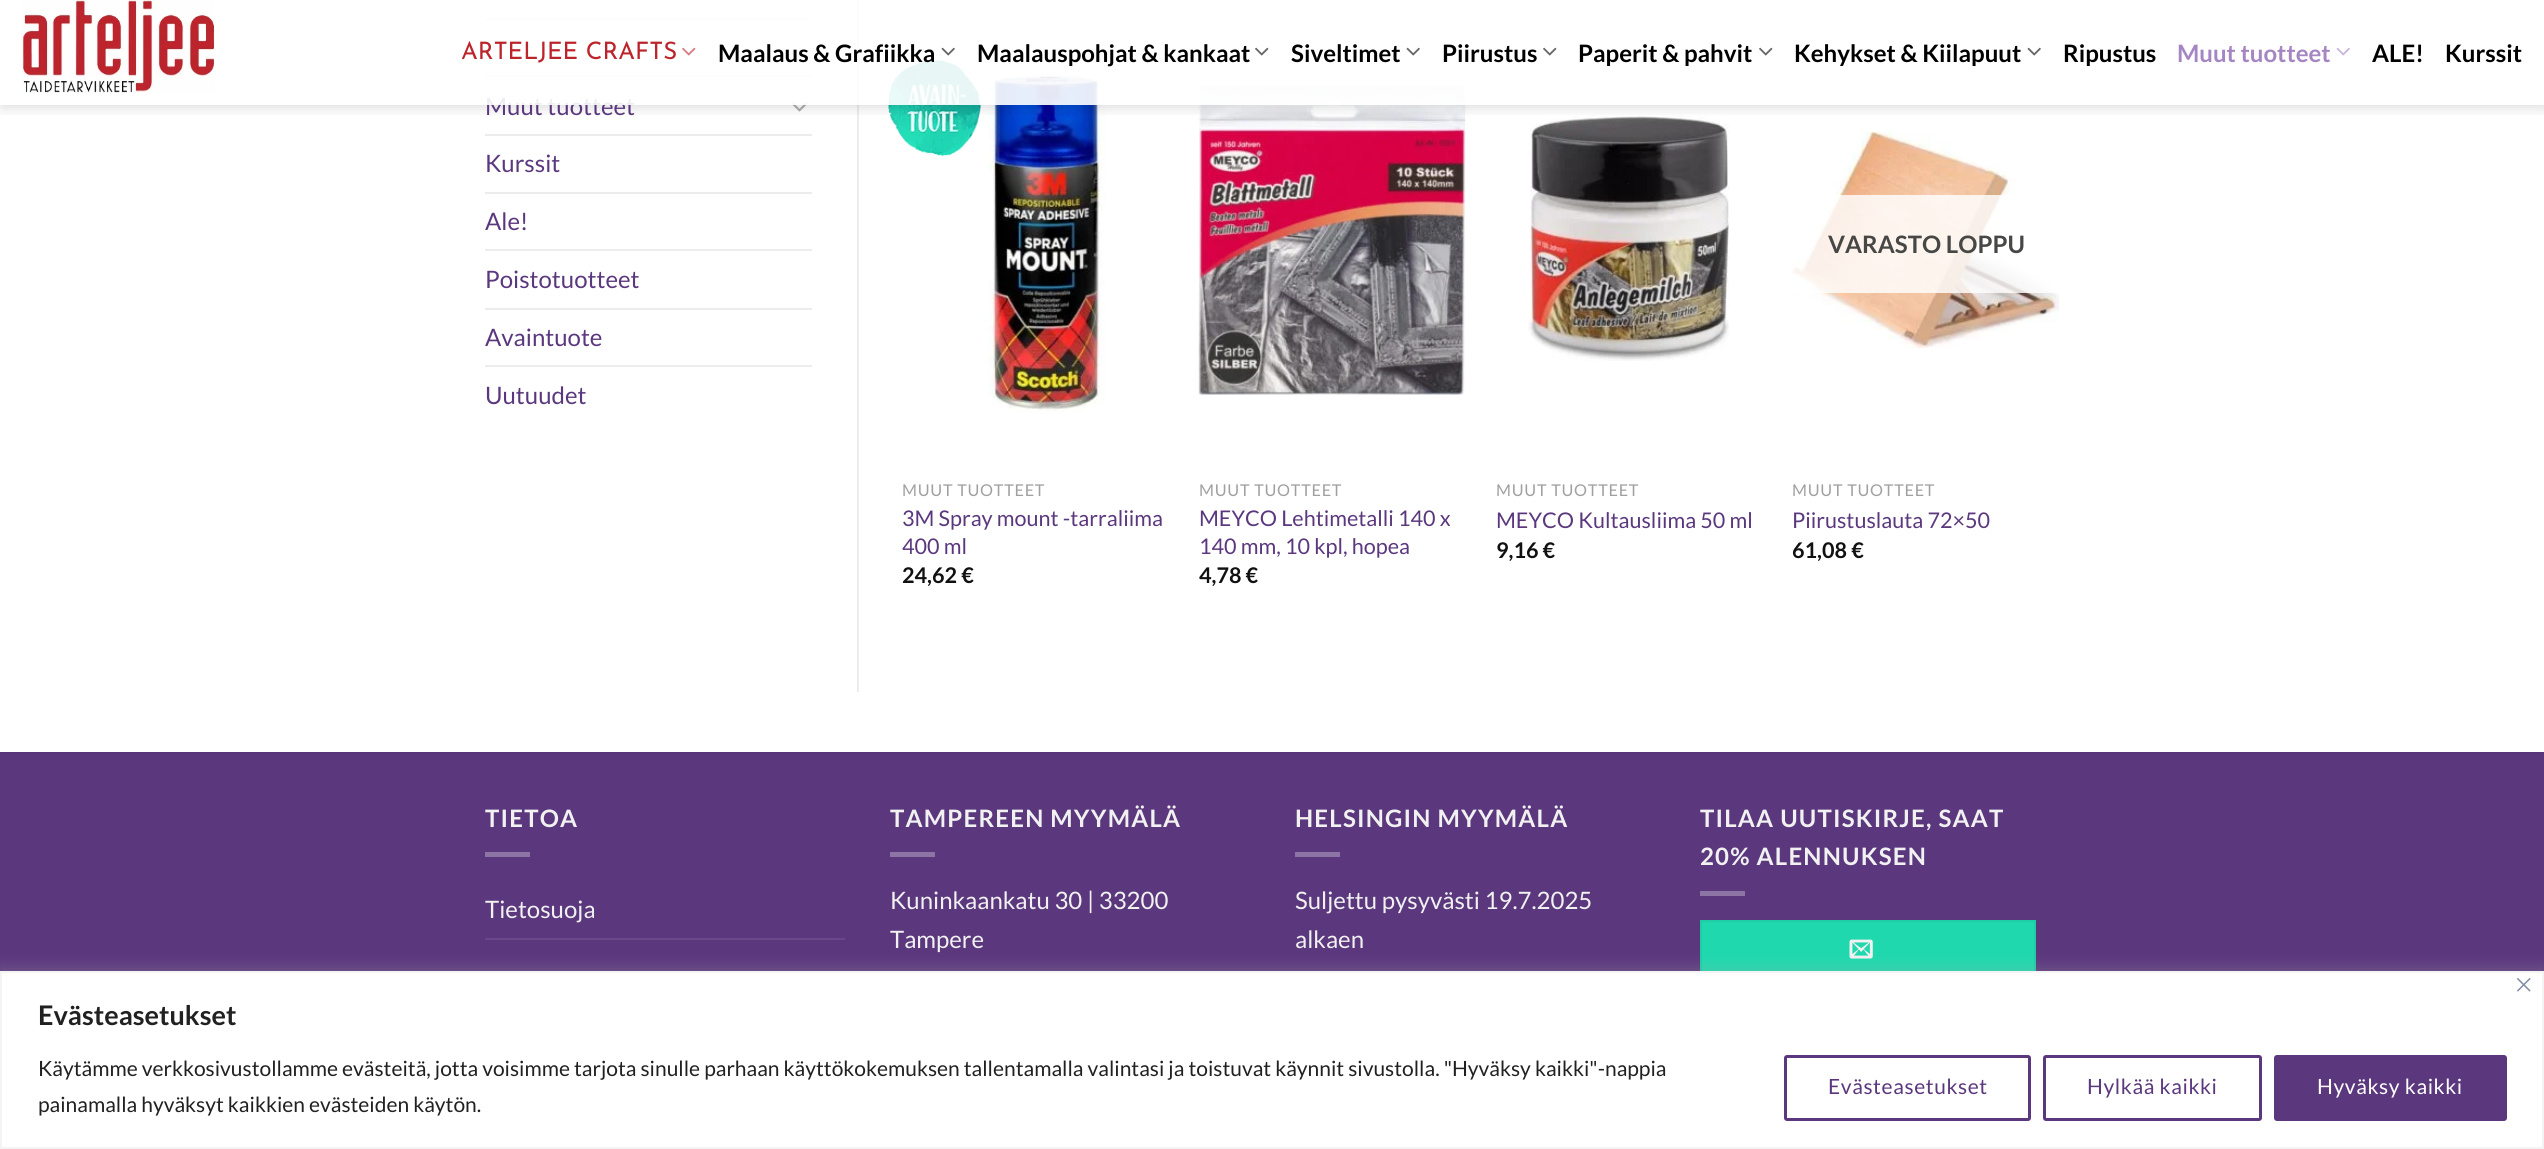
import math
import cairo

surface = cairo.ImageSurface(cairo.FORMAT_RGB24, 2544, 1149)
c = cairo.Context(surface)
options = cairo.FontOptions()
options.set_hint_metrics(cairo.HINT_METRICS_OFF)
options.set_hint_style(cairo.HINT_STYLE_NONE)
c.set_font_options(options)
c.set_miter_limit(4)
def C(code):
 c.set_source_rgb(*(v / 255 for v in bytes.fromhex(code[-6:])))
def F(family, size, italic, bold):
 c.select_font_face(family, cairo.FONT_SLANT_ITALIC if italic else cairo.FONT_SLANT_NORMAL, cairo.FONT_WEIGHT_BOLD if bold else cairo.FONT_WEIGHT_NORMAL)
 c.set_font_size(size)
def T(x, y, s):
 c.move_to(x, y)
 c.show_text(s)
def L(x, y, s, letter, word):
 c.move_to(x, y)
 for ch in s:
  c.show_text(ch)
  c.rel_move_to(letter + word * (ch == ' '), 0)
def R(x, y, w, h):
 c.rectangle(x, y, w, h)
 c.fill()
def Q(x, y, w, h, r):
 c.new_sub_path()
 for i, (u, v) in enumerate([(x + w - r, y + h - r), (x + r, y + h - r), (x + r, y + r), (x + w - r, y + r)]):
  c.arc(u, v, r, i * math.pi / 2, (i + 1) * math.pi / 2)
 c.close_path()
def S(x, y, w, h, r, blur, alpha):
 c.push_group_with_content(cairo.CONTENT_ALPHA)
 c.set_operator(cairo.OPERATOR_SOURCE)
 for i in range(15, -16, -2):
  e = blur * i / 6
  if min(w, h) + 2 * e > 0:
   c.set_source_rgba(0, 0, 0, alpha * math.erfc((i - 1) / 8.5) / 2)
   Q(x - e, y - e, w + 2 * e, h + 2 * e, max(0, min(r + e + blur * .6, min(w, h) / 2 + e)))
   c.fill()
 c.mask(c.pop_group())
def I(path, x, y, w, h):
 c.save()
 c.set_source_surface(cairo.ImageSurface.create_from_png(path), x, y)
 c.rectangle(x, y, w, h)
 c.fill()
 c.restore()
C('ffffff')
c.paint()
C('ececec')
R(485,18,327,2)
R(485,75,327,2)
I('6.png',791,102,17,10)
R(857,0,2,692)
I('7.png',888,60,93,96)
I('8.png',988,73,118,339)
I('9.png',1198,84,268,311)
I('10.png',1528,115,201,246)
c.save()
c.rectangle(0,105,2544,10)
c.clip()
C('000000')
S(2,2,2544,105,0,7.5,.15)
c.restore()
F('Lato',24,0,0)
C('5b387e')
T(485,115,'Muut tuotteet')
c.set_source_rgba(1,1,1,0.9)
R(485,0,981,105)
I('1.png',22,0,193,93)
F('Josefin Sans',24,0,0)
C('bc242c')
T(461,59,'ARTELJEE CRAFTS')
I('2.png',682,47,14,9)
F('Lato',24,0,1)
C('000000')
T(718,62,'Maalaus & Grafiikka')
I('3.png',941,47,14,9)
T(977,62,'Maalauspohjat & kankaat')
I('4.png',1255,47,14,9)
T(1291,62,'Siveltimet')
I('3.png',1406,47,14,9)
T(1442,62,'Piirustus')
I('4.png',1543,47,14,9)
T(1578,62,'Paperit & pahvit')
I('4.png',1759,47,14,9)
T(1794,62,'Kehykset & Kiilapuut')
I('3.png',2027,47,14,9)
T(2063,62,'Ripustus')
C('a586c3')
T(2177,62,'Muut tuotteet')
I('5.png',2336,47,14,9)
C('000000')
T(2372,62,'ALE!')
T(2445,62,'Kurssit')
C('ececec')
R(485,134,327,2)
F('Lato',24,0,0)
C('5b387e')
T(485,172,'Kurssit')
C('ececec')
R(485,192,327,2)
C('5b387e')
T(485,230,'Ale!')
C('ececec')
R(485,249,327,2)
C('5b387e')
T(485,288,'Poistotuotteet')
C('ececec')
R(485,308,327,2)
C('5b387e')
T(485,346,'Avaintuote')
C('ececec')
R(485,365,327,2)
C('5b387e')
T(485,404,'Uutuudet')
F('Lato',16.25,0,0)
C('a0a0a0')
L(902,496,'MUUT TUOTTEET',.75,0)
F('Lato',21.6,0,0)
C('5b387e')
T(902,526,'3M Spray mount -tarraliima')
T(902,554,'400 ml')
F('Lato',21.6,0,1)
C('111111')
T(902,583,'24,62 €')
F('Lato',16.25,0,0)
C('a0a0a0')
L(1199,496,'MUUT TUOTTEET',.75,0)
F('Lato',21.6,0,0)
C('5b387e')
T(1199,526,'MEYCO Lehtimetalli 140 x')
T(1199,554,'140 mm, 10 kpl, hopea')
F('Lato',21.6,0,1)
C('111111')
T(1199,583,'4,78 €')
F('Lato',16.25,0,0)
C('a0a0a0')
L(1496,496,'MUUT TUOTTEET',.75,0)
F('Lato',21.6,0,0)
C('5b387e')
T(1496,528,'MEYCO Kultausliima 50 ml')
F('Lato',21.6,0,1)
C('111111')
T(1496,558,'9,16 €')
I('11.png',1792,132,267,216)
c.set_source_rgba(1,1,1,0.81)
R(1793,195,266,98)
F('Lato',24,0,1)
C('474746')
T(1828,253,'VARASTO LOPPU')
F('Lato',16.25,0,0)
C('a0a0a0')
L(1792,496,'MUUT TUOTTEET',.75,0)
F('Lato',21.6,0,0)
C('5b387e')
T(1792,528,'Piirustuslauta 72×50')
F('Lato',21.6,0,1)
C('111111')
T(1792,558,'61,08 €')
C('5b387e')
R(0,754,2544,217)
C('563578')
R(0,752,2544,2)
F('Lato',24,0,1)
C('f1f1f1')
L(485,827,'TIETOA',1.2,0)
C('8c74a5')
R(485,852,45,5)
F('Lato',24,0,0)
C('f1f1f1')
T(485,918,'Tietosuoja')
C('684888')
R(485,938,360,2)
F('Lato',24,0,1)
C('f1f1f1')
L(890,827,'TAMPEREEN MYYMÄLÄ',1.2,0)
C('8c74a5')
R(890,852,45,5)
F('Lato',24,0,0)
C('f1f1f1')
T(890,909,'Kuninkaankatu 30 | 33200')
T(890,948,'Tampere')
F('Lato',24,0,1)
L(1295,827,'HELSINGIN MYYMÄLÄ',1.2,0)
C('8c74a5')
R(1295,852,45,5)
F('Lato',24,0,0)
C('f1f1f1')
T(1295,909,'Suljettu pysyvästi 19.7.2025')
T(1295,948,'alkaen')
F('Lato',24,0,1)
L(1700,827,'TILAA UUTISKIRJE, SAAT',1.2,0)
L(1700,865,'20% ALENNUKSEN',1.2,0)
C('8c74a5')
R(1700,891,45,5)
C('20d8ae')
R(1702,922,332,49)
c.rectangle(1701,921,334,140)
C('1ecda5')
c.stroke()
I('12.png',1849,939,24,20)
C('acabab')
S(0,969,2544,179,0,7.5,.3)
C('ffffff')
c.rectangle(1,972,2542,176)
c.fill_preserve()
C('f4f4f4')
c.stroke()
I('13.png',2517,978,14,14)
F('Lato',27,0,1)
C('212121')
T(38,1025,'Evästeasetukset')
F('Lato',21,0,0)
T(38,1076,'Käytämme verkkosivustollamme evästeitä, jotta voisimme tarjota sinulle parhaan käyttökokemuksen tallentamalla valintasi ja toistuvat käynnit sivustolla. "Hyväksy kaikki"-nappia')
T(38,1112,'painamalla hyväksyt kaikkien evästeiden käytön.')
Q(1785.5,1056.5,244,63,1.5)
C('5b387e')
c.set_line_width(3)
c.stroke()
L(1828,1094,'Evästeasetukset',.6,0)
Q(2044.5,1056.5,216,63,1.5)
c.stroke()
L(2087,1094,'Hylkää kaikki',.6,0)
Q(2275.5,1056.5,230,63,1.5)
c.fill_preserve()
c.stroke()
C('ffffff')
L(2317,1094,'Hyväksy kaikki',.6,0)
surface.write_to_png('o.png')
